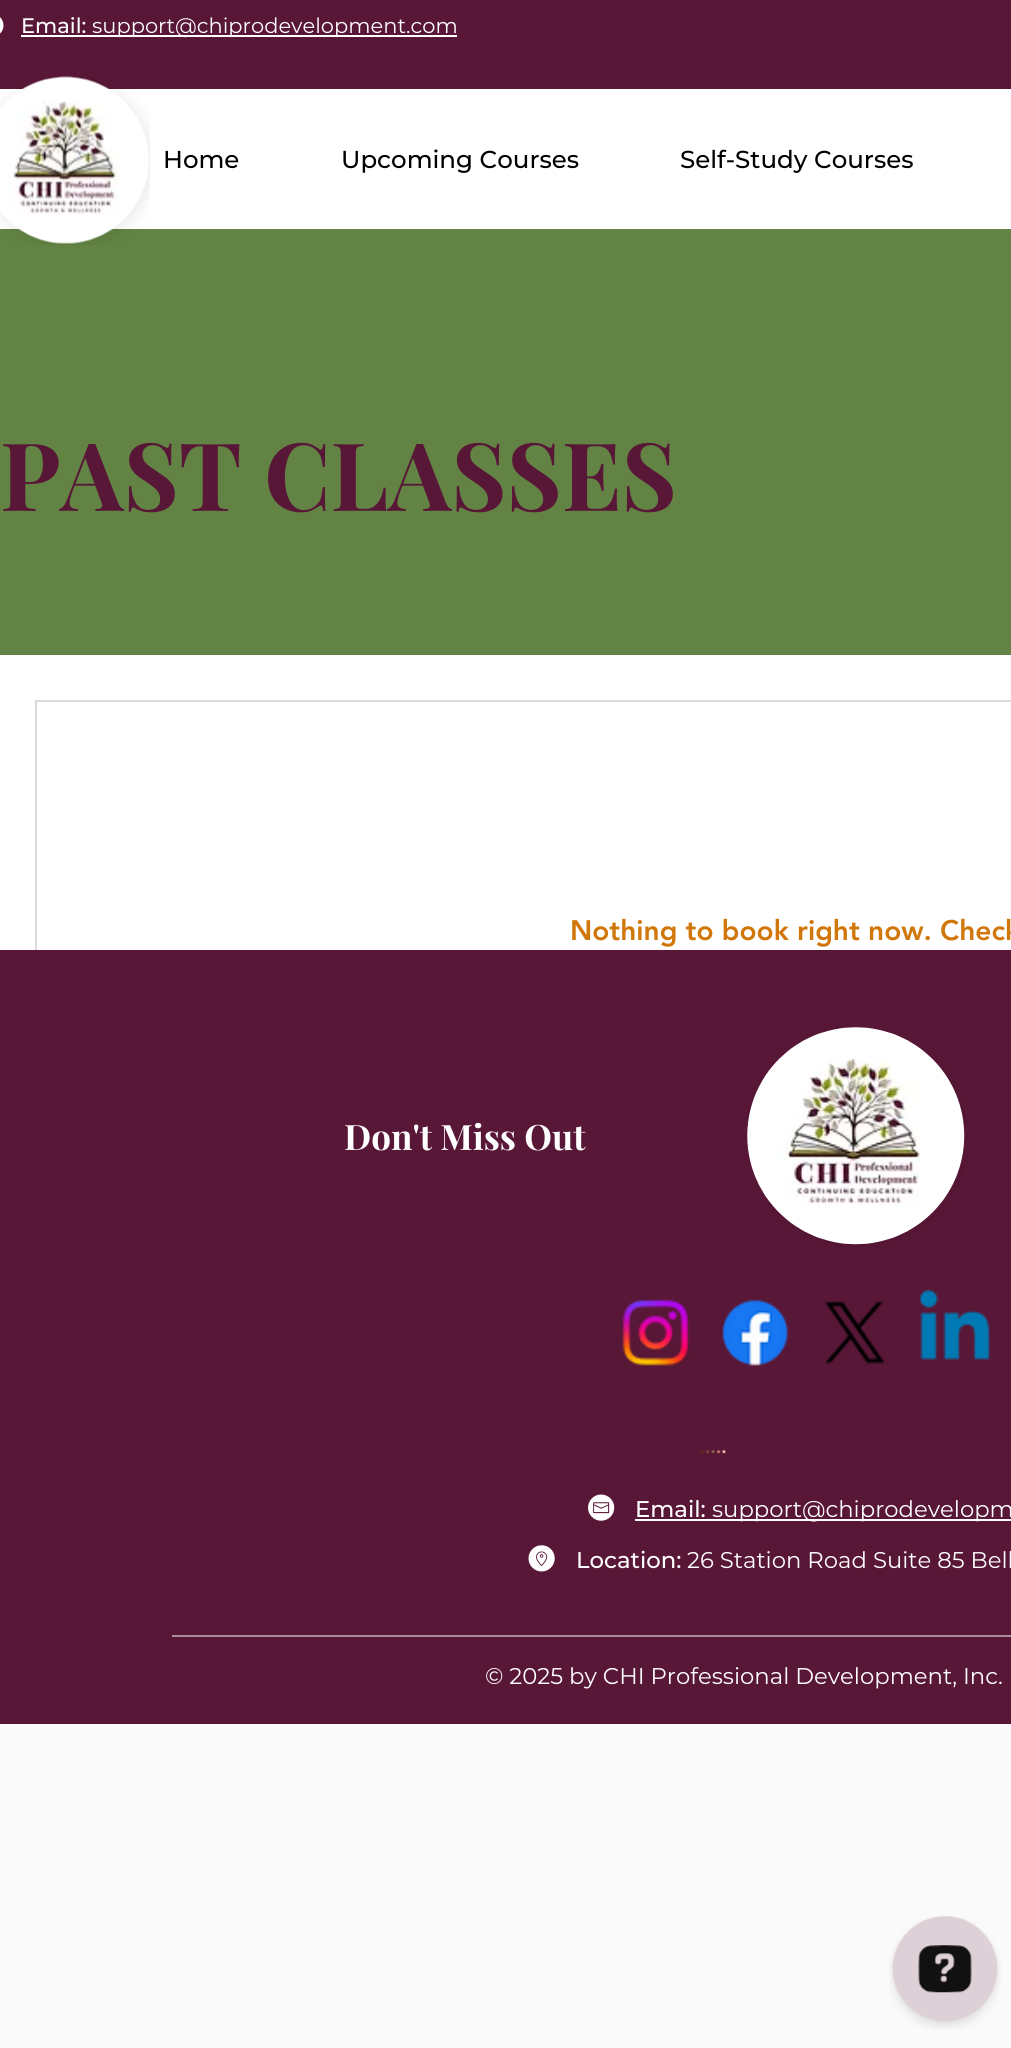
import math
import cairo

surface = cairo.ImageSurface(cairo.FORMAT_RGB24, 1011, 2048)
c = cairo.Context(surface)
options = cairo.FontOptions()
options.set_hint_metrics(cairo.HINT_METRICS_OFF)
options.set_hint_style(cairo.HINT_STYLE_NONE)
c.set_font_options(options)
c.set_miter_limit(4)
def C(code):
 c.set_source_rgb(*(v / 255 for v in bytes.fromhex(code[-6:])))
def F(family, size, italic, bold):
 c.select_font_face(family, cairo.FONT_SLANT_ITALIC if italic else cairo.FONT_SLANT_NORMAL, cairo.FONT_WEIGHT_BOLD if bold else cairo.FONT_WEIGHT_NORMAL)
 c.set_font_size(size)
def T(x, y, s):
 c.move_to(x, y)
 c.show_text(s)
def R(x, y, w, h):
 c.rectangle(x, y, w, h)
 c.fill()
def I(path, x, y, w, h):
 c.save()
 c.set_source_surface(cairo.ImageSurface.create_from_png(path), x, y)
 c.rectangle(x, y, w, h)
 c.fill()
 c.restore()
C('fafafa')
c.paint()
C('591737')
R(0,0,1011,89)
I('1.png',0,17,4,17)
F('Montserrat Medium',21,0,0)
C('ffffff')
T(21,33,'Email:')
R(21,35,436,2)
F('Montserrat',21,0,0)
T(92,33,'support@chiprodevelopment.com')
R(0,89,1011,140)
C('628344')
R(0,229,1011,426)
I('2.png',0,76,150,169)
I('3.png',7,101,112,114)
F('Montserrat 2 Medium',24.5,0,0)
C('000000')
T(163,168,'Home')
T(341,168,'Upcoming Courses')
T(680,168,'Self-Study Courses')
F('Playfair Display',94.5,0,1)
C('591737')
T(0,511,'PAST CLASSES')
C('ffffff')
R(0,655,1011,295)
c.rectangle(36,701,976,460)
c.set_source_rgba(0.29,0.29,0.29,0.2)
c.stroke()
F('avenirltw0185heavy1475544 Black',28,0,0)
C('d17609')
T(570,940,'Nothing to book right now. Check')
C('591737')
R(0,950,1011,774)
F('Playfair Display',35,0,1)
C('ffffff')
T(344,1150,'Don\'t Miss Out')
I('4.png',747,1027,219,220)
I('5.png',778,1058,142,151)
I('6.png',622,1299,67,67)
I('7.png',722,1299,66,67)
I('8.png',824,1301,62,63)
I('9.png',919,1289,72,72)
I('10.png',700,1449,26,5)
I('11.png',588,1494,27,27)
F('Montserrat Medium',22.75,0,0)
T(635,1517,'Email:')
R(635,1519,376,2)
F('Montserrat',22.75,0,0)
T(712,1517,'support@chiprodevelopm')
I('12.png',528,1545,27,27)
F('Montserrat Medium',22.75,0,0)
T(576,1568,'Location:')
F('Montserrat',22.75,0,0)
T(687,1568,'26 Station Road Suite 85 Bell')
C('ac8b9b')
R(172,1635,839,2)
C('ffffff')
T(485,1684,'© 2025 by CHI Professional Development, Inc.')
I('13.png',889,1916,112,114)
surface.write_to_png('o.png')
